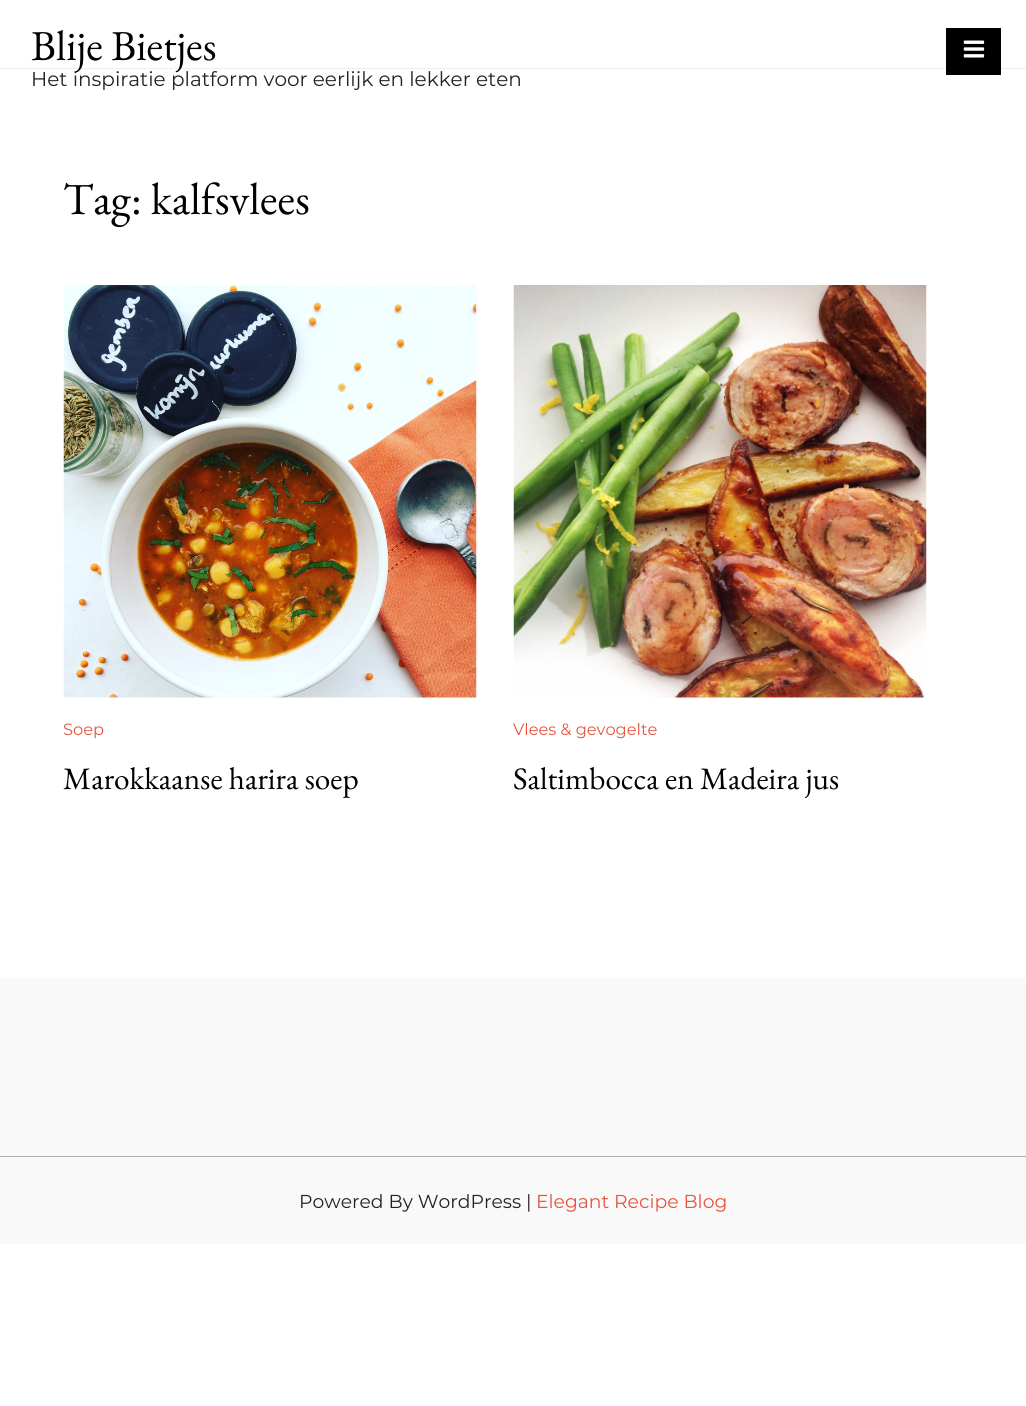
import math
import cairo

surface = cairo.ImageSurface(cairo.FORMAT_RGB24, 1026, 1406)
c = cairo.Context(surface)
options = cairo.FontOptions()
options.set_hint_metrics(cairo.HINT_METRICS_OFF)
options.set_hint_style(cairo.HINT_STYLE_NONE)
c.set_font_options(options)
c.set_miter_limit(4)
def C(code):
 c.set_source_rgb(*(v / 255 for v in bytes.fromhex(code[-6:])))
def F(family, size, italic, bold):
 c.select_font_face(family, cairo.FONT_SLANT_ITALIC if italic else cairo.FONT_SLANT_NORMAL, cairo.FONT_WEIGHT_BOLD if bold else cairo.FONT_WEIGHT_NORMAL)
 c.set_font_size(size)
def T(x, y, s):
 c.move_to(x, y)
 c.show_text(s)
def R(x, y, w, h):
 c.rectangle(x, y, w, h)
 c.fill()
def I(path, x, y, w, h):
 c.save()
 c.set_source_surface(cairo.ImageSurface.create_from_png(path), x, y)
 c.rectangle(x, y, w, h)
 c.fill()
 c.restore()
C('ffffff')
c.paint()
C('eeeeee')
R(0,68,1026,1)
F('EB Garamond',42.5,0,0)
C('000000')
T(31,60,'Blije Bietjes')
F('Montserrat Thin',20,0,0)
C('232323')
T(31,86,'Het inspiratie platform voor eerlijk en lekker eten')
C('000000')
R(946,28,55,47)
I('1.png',963,40,22,18)
F('EB Garamond',45,0,0)
T(63,214,'Tag: kalfsvlees')
I('2.png',63,285,414,413)
F('Montserrat Thin',16.25,0,0)
C('e35640')
T(63,735,'Soep')
F('EB Garamond',31.25,0,0)
C('000000')
T(63,789,'Marokkaanse harira soep')
I('3.png',513,285,414,413)
F('Montserrat Thin',16.25,0,0)
C('e35640')
T(513,735,'Vlees & gevogelte')
F('EB Garamond',31.25,0,0)
C('000000')
T(513,789,'Saltimbocca en Madeira jus')
C('f9f9f9')
R(0,978,1026,266)
C('b1b1b1')
R(0,1156,1026,1)
F('Montserrat Thin',18.75,0,0)
C('232323')
T(299,1208,'Powered By WordPress |')
C('e35640')
T(536,1208,'Elegant Recipe Blog')
surface.write_to_png('o.png')
